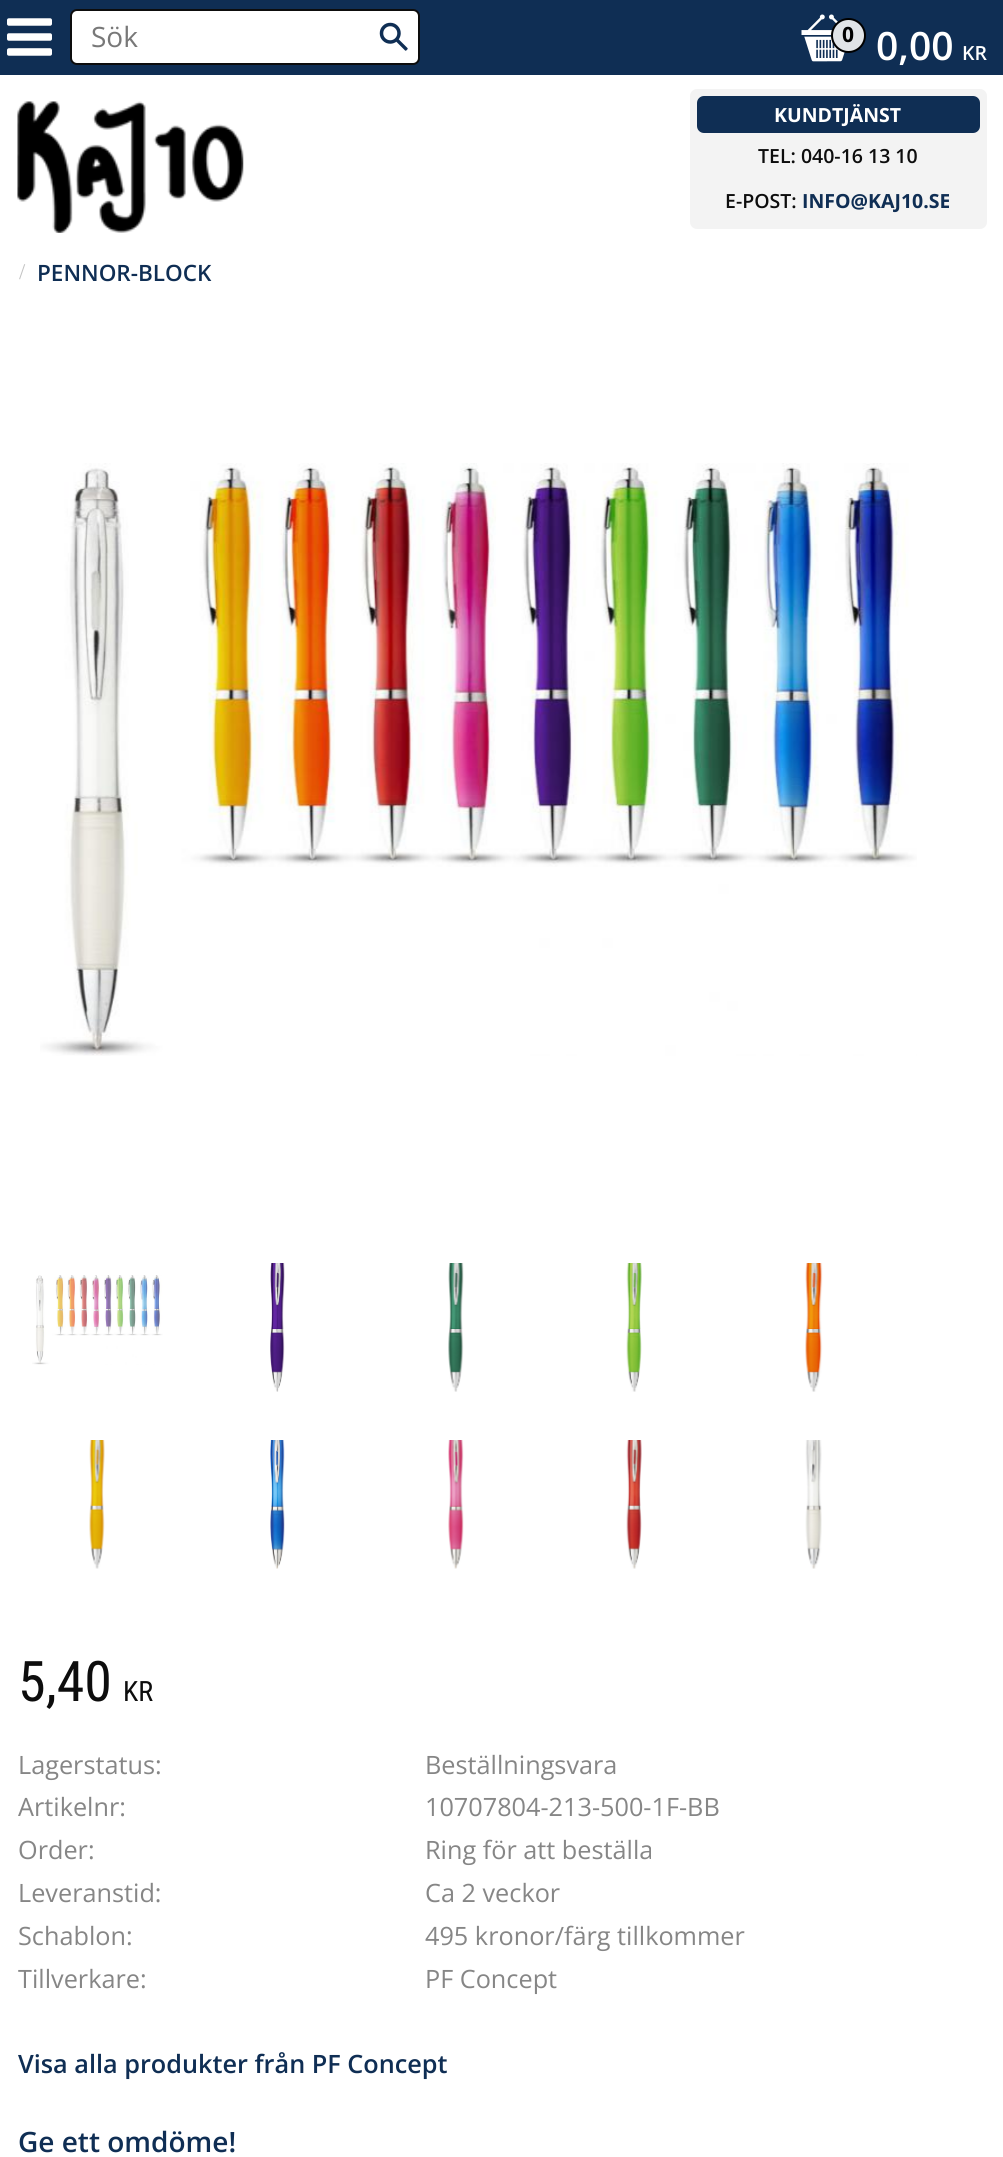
import math
import cairo

surface = cairo.ImageSurface(cairo.FORMAT_RGB24, 1003, 2157)
c = cairo.Context(surface)
options = cairo.FontOptions()
options.set_hint_metrics(cairo.HINT_METRICS_OFF)
options.set_hint_style(cairo.HINT_STYLE_NONE)
c.set_font_options(options)
c.set_miter_limit(4)
def C(code):
 c.set_source_rgb(*(v / 255 for v in bytes.fromhex(code[-6:])))
def F(family, size, italic, bold):
 c.select_font_face(family, cairo.FONT_SLANT_ITALIC if italic else cairo.FONT_SLANT_NORMAL, cairo.FONT_WEIGHT_BOLD if bold else cairo.FONT_WEIGHT_NORMAL)
 c.set_font_size(size)
def T(x, y, s):
 c.move_to(x, y)
 c.show_text(s)
def R(x, y, w, h):
 c.rectangle(x, y, w, h)
 c.fill()
def Q(x, y, w, h, r):
 c.new_sub_path()
 for i, (u, v) in enumerate([(x + w - r, y + h - r), (x + r, y + h - r), (x + r, y + r), (x + w - r, y + r)]):
  c.arc(u, v, r, i * math.pi / 2, (i + 1) * math.pi / 2)
 c.close_path()
def I(path, x, y, w, h):
 c.save()
 c.set_source_surface(cairo.ImageSurface.create_from_png(path), x, y)
 c.rectangle(x, y, w, h)
 c.fill()
 c.restore()
C('ffffff')
c.paint()
C('0f2e54')
R(0,0,1003,75)
I('1.png',7,18,45,38)
C('ffffff')
Q(71,10,348,54,6)
c.fill_preserve()
C('0d0d0d')
c.stroke()
F('Open Sans',28,0,0)
C('787878')
T(91,47,'Sök')
I('2.png',379,22,29,29)
I('3.png',801,14,44,48)
C('e1e4e7')
c.arc(848.5,35.5,16.5,0,2 * math.pi)
c.fill_preserve()
C('000000')
c.stroke()
F('Open Sans',21,0,1)
T(842,42,'0')
F('Open Sans SemiBold',39,0,0)
C('ffffff')
T(876,60,'0,00')
F('Open Sans SemiBold',19.5,0,0)
T(962,60,'KR')
I('4.png',17,101,227,132)
C('f3f3f3')
Q(690,89,297,140,7)
c.fill()
C('0f2e54')
Q(697,96,283,37,7)
c.fill()
F('Open Sans',19.5,0,1)
C('ffffff')
T(774,122,'KUNDTJÄNST')
F('Open Sans SemiBold',19.5,0,0)
C('0d0d0d')
T(758,163,'TEL: 040-16 13 10')
T(725,208,'E-POST:')
F('Open Sans',19.5,0,1)
C('0f2e54')
T(802,208,'INFO@KAJ10.SE')
F('Liberation Serif',22.5,0,0)
C('c3c3c3')
T(19,279,'/')
F('Open Sans SemiBold',22.5,0,0)
C('0f2e54')
T(37,281,'PENNOR-BLOCK')
I('5.png',40,463,877,593)
I('6.png',32,1275,131,90)
I('7.png',270,1263,15,129)
I('8.png',448,1263,16,129)
I('9.png',626,1263,16,129)
I('10.png',805,1263,18,129)
I('11.png',89,1440,16,129)
I('12.png',270,1440,15,129)
I('13.png',448,1440,16,129)
I('14.png',626,1440,16,129)
I('15.png',805,1440,17,129)
F('Roboto Condensed',56,0,0)
C('0d0d0d')
T(18,1701,'5,40')
F('Roboto Condensed',28,0,0)
T(123,1701,'KR')
F('Open Sans',25.25,0,0)
C('868686')
T(18,1774,'Lagerstatus:')
T(425,1774,'Beställningsvara')
T(18,1816,'Artikelnr:')
T(425,1816,'10707804-213-500-1F-BB')
T(18,1859,'Order:')
T(425,1859,'Ring för att beställa')
T(18,1902,'Leveranstid:')
T(425,1902,'Ca 2 veckor')
T(18,1945,'Schablon:')
T(425,1945,'495 kronor/färg tillkommer')
T(18,1988,'Tillverkare:')
T(425,1988,'PF Concept')
F('Open Sans SemiBold',25.25,0,0)
C('0f2e54')
T(18,2073,'Visa alla produkter från PF Concept')
F('Open Sans SemiBold',28,0,0)
T(18,2152,'Ge ett omdöme!')
surface.write_to_png('o.png')
